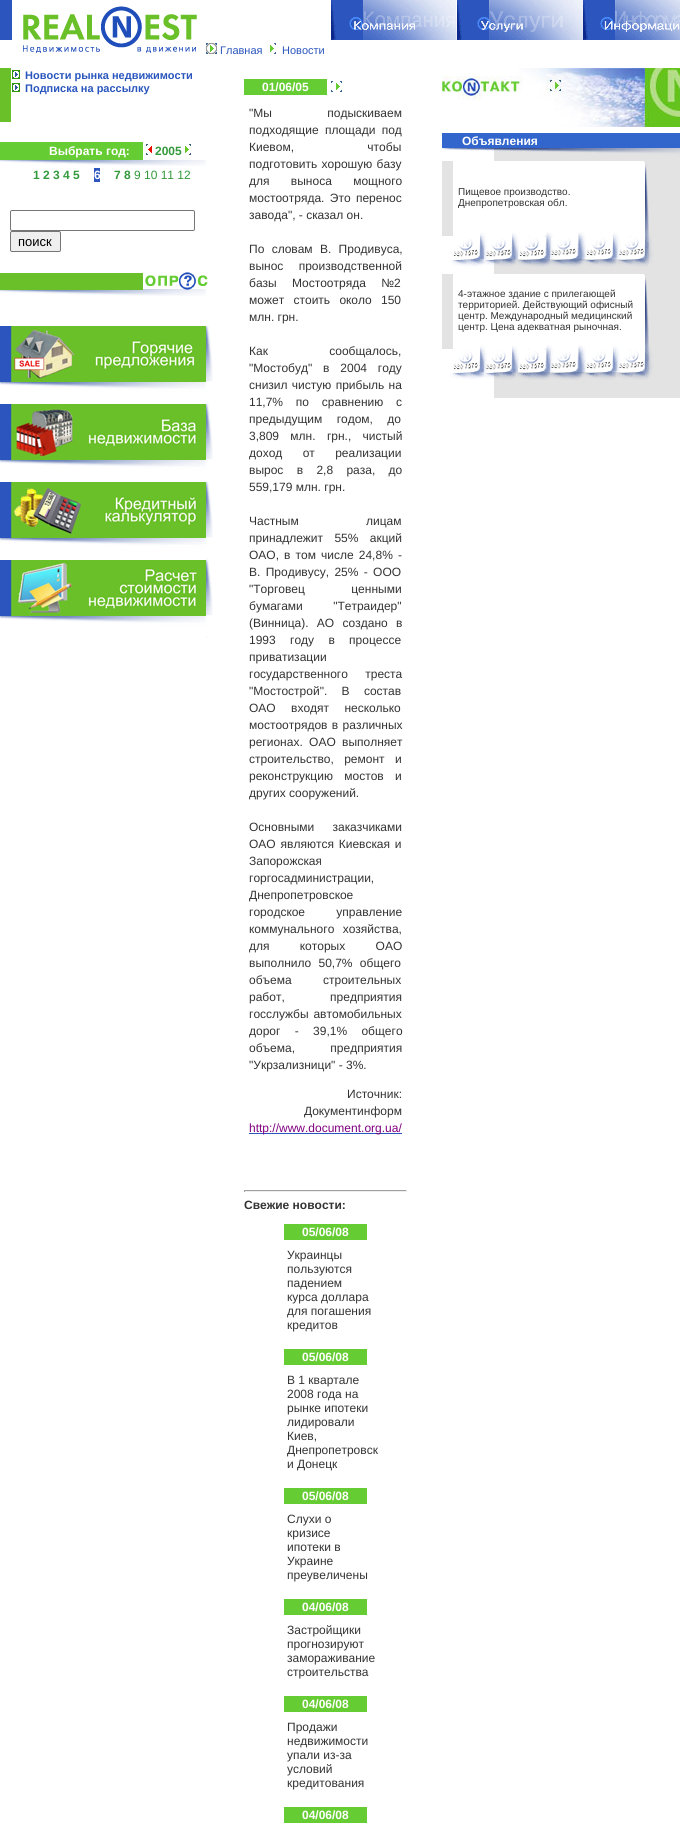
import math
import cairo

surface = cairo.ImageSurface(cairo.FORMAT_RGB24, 680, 1834)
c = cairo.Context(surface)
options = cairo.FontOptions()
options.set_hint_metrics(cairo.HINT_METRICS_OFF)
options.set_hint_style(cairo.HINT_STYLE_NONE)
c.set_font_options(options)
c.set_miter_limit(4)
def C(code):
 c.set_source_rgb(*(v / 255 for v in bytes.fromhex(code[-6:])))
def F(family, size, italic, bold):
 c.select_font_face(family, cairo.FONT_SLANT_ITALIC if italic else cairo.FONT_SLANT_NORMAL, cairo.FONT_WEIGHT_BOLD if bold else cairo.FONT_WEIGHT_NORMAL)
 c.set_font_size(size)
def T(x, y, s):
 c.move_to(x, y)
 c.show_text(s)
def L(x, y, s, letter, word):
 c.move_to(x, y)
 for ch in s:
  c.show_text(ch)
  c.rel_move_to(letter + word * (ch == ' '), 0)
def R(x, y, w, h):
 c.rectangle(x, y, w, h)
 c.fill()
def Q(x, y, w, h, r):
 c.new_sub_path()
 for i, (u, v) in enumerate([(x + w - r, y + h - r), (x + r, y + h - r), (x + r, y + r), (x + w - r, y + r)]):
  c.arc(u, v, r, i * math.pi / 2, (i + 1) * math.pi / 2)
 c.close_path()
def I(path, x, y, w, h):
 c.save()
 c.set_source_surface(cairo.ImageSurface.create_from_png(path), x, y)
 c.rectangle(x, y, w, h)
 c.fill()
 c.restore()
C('ffffff')
c.paint()
I('1.png',0,0,197,53)
I('2.png',331,0,126,40)
I('3.png',457,0,126,40)
I('4.png',583,0,97,40)
I('5.png',206,43,11,11)
F('Liberation Sans',11,0,0)
C('2955bd')
T(220,54,'Главная')
I('6.png',270,43,6,11)
T(282,54,'Новости')
C('69c028')
R(0,68,11,54)
I('7.png',12,70,8,9)
F('Liberation Sans',11,0,1)
C('2955bd')
T(25,79,'Новости рынка недвижимости')
I('7.png',12,83,8,9)
T(25,92,'Подписка на рассылку')
C('66cc33')
R(0,142,143,18)
F('Liberation Sans',12,0,1)
C('ffffff')
T(49,155,'Выбрать год:')
I('8.png',146,144,9,11)
C('33993b')
T(155,155,'2005')
I('9.png',183,144,8,11)
I('10.png',0,160,206,6)
T(33,179,'1 2 3 4 5')
C('2c56be')
R(94,168,6,14)
C('ffffff')
T(94,179,'6')
C('33993b')
T(114,179,'7 8')
F('Liberation Sans',12,0,0)
T(134,179,'9 10 11 12')
Q(10.5,210.5,184,20,1.5)
C('767676')
c.set_line_width(1)
c.stroke()
C('efefef')
Q(10.5,231.5,50,20,1.5)
c.fill_preserve()
C('767676')
c.stroke()
F('Liberation Sans',13,0,0)
C('000000')
T(18,246,'поиск')
C('69c028')
R(0,273,143,17)
I('11.png',143,272,65,18)
I('10.png',0,290,206,6)
I('12.png',0,326,206,56)
I('13.png',206,326,7,56)
I('14.png',0,382,208,22)
I('15.png',0,404,206,56)
I('13.png',206,404,7,56)
I('14.png',0,460,208,22)
I('16.png',0,482,206,56)
I('13.png',206,482,7,56)
I('14.png',0,538,208,22)
I('17.png',0,560,206,56)
I('13.png',206,560,7,56)
I('14.png',0,616,208,22)
C('66cc33')
R(244,79,83,16)
F('Liberation Sans',12,0,1)
C('ffffff')
T(262,91,'01/06/05')
I('18.png',331,81,11,11)
F('Liberation Sans',12,0,0)
C('333333')
L(249,117,'"Мы подыскиваем',0,52)
L(249,134,'подходящие площади под',0,3)
L(249,151,'Киевом, чтобы',0,70)
L(249,168,'подготовить хорошую базу',0,1)
L(249,185,'для выноса мощного',0,18)
L(249,202,'мостоотряда. Это перенос',0,2)
T(249,219,'завода", - сказал он.')
L(249,253,'По словам В. Продивуса,',0,4)
L(249,270,'вынос производственной',0,12)
L(249,287,'базы Мостоотряда №2',0,12)
L(249,304,'может стоить около 150',0,6)
T(249,321,'млн. грн.')
L(249,355,'Как сообщалось,',0,58)
L(249,372,'"Мостобуд" в 2004 году',0,7.5)
L(249,389,'снизил чистую прибыль на',0,1)
L(249,406,'11,7% по сравнению с',0,9.5)
L(249,423,'предыдущим годом, до',0,11)
L(249,440,'3,809 млн. грн., чистый',0,8)
L(249,457,'доход от реализации',0,17)
L(249,474,'вырос в 2,8 раза, до',0,10)
T(249,491,'559,179 млн. грн.')
L(249,525,'Частным лицам',0,64)
L(249,542,'принадлежит 55% акций',0,8)
L(249,559,'ОАО, в том числе 24,8% -',0,1.75)
L(249,576,'В. Продивусу, 25% - ООО',0,2)
L(249,593,'"Торговец ценными',0,43)
L(249,610,'бумагами "Тетраидер"',0,27)
L(249,627,'(Винница). АО создано в',0,5)
L(249,644,'1993 году в процессе',0,11)
T(249,661,'приватизации')
L(249,678,'государственного треста',0,14)
L(249,695,'"Мостострой". В состав',0,11)
L(249,712,'ОАО входят несколько',0,12)
L(249,729,'мостоотрядов в различных',0,1)
L(249,746,'регионах. ОАО выполняет',0,3)
L(249,763,'строительство, ремонт и',0,7)
L(249,780,'реконструкцию мостов и',0,8)
T(249,797,'других сооружений.')
L(249,831,'Основными заказчиками',0,15)
L(249,848,'ОАО являются Киевская и',0,1.5)
T(249,865,'Запорожская')
T(249,882,'горгосадминистрации,')
T(249,899,'Днепропетровское')
L(249,916,'городское управление',0,28)
L(249,933,'коммунального хозяйства,',0,5)
L(249,950,'для которых ОАО',0,27)
L(249,967,'выполнило 50,7% общего',0,4)
L(249,984,'объема строительных',0,28)
L(249,1001,'работ, предприятия',0,42)
L(249,1018,'госслужбы автомобильных',0,1.5)
L(249,1035,'дорог - 39,1% общего',0,11)
L(249,1052,'объема, предприятия',0,32)
T(249,1069,'"Укрзализници" - 3%.')
T(347,1098,'Источник:')
T(304,1115,'Документинформ')
C('2955bd')
R(249,1133,153,1)
C('800080')
T(249,1132,'http://www.document.org.ua/')
C('9f9f9f')
R(244,1190,163,1)
C('eeeeee')
R(406,1190,1,2)
R(244,1191,163,1)
C('9f9f9f')
R(244,1190,1,2)
F('Liberation Sans',12,0,1)
C('333333')
T(244,1209,'Свежие новости:')
C('66cc33')
R(284,1224,83,16)
C('ffffff')
T(302,1236,'05/06/08')
F('Liberation Sans',12,0,0)
C('333333')
T(287,1259,'Украинцы')
T(287,1273,'пользуются')
T(287,1287,'падением')
T(287,1301,'курса доллара')
T(287,1315,'для погашения')
T(287,1329,'кредитов')
C('66cc33')
R(284,1349,83,16)
F('Liberation Sans',12,0,1)
C('ffffff')
T(302,1361,'05/06/08')
F('Liberation Sans',12,0,0)
C('333333')
T(287,1384,'В 1 квартале')
T(287,1398,'2008 года на')
T(287,1412,'рынке ипотеки')
T(287,1426,'лидировали')
T(287,1440,'Киев,')
T(287,1454,'Днепропетровск')
T(287,1468,'и Донецк')
C('66cc33')
R(284,1488,83,16)
F('Liberation Sans',12,0,1)
C('ffffff')
T(302,1500,'05/06/08')
F('Liberation Sans',12,0,0)
C('333333')
T(287,1523,'Слухи о')
T(287,1537,'кризисе')
T(287,1551,'ипотеки в')
T(287,1565,'Украине')
T(287,1579,'преувеличены')
C('66cc33')
R(284,1599,83,16)
F('Liberation Sans',12,0,1)
C('ffffff')
T(302,1611,'04/06/08')
F('Liberation Sans',12,0,0)
C('333333')
T(287,1634,'Застройщики')
T(287,1648,'прогнозируют')
T(287,1662,'замораживание')
T(287,1676,'строительства')
C('66cc33')
R(284,1696,83,16)
F('Liberation Sans',12,0,1)
C('ffffff')
T(302,1708,'04/06/08')
F('Liberation Sans',12,0,0)
C('333333')
T(287,1731,'Продажи')
T(287,1745,'недвижимости')
T(287,1759,'упали из-за')
T(287,1773,'условий')
T(287,1787,'кредитования')
C('66cc33')
R(284,1807,83,16)
F('Liberation Sans',12,0,1)
C('ffffff')
T(302,1819,'04/06/08')
I('19.png',442,68,238,59)
C('3366cc')
R(442,133,238,15)
C('ffffff')
T(462,145,'Объявления')
I('20.png',442,148,238,13)
C('e3e3e3')
R(442,161,11,71)
F('Liberation Sans',10,0,0)
C('333333')
T(458,195,'Пищевое производство.')
T(458,206,'Днепропетровская обл.')
C('e3e3e3')
R(644,161,36,71)
I('21.png',644,162,5,70)
I('22.png',442,232,238,35)
R(494,267,186,7)
R(442,274,11,71)
C('333333')
T(458,297,'4-этажное здание с прилегающей')
T(458,308,'территорией. Действующий офисный')
T(458,319,'центр. Международный медицинский')
T(458,330,'центр. Цена адекватная рыночная.')
C('e3e3e3')
R(644,274,36,71)
I('21.png',644,275,5,70)
I('22.png',442,345,238,35)
R(494,380,186,18)
surface.write_to_png('o.png')
